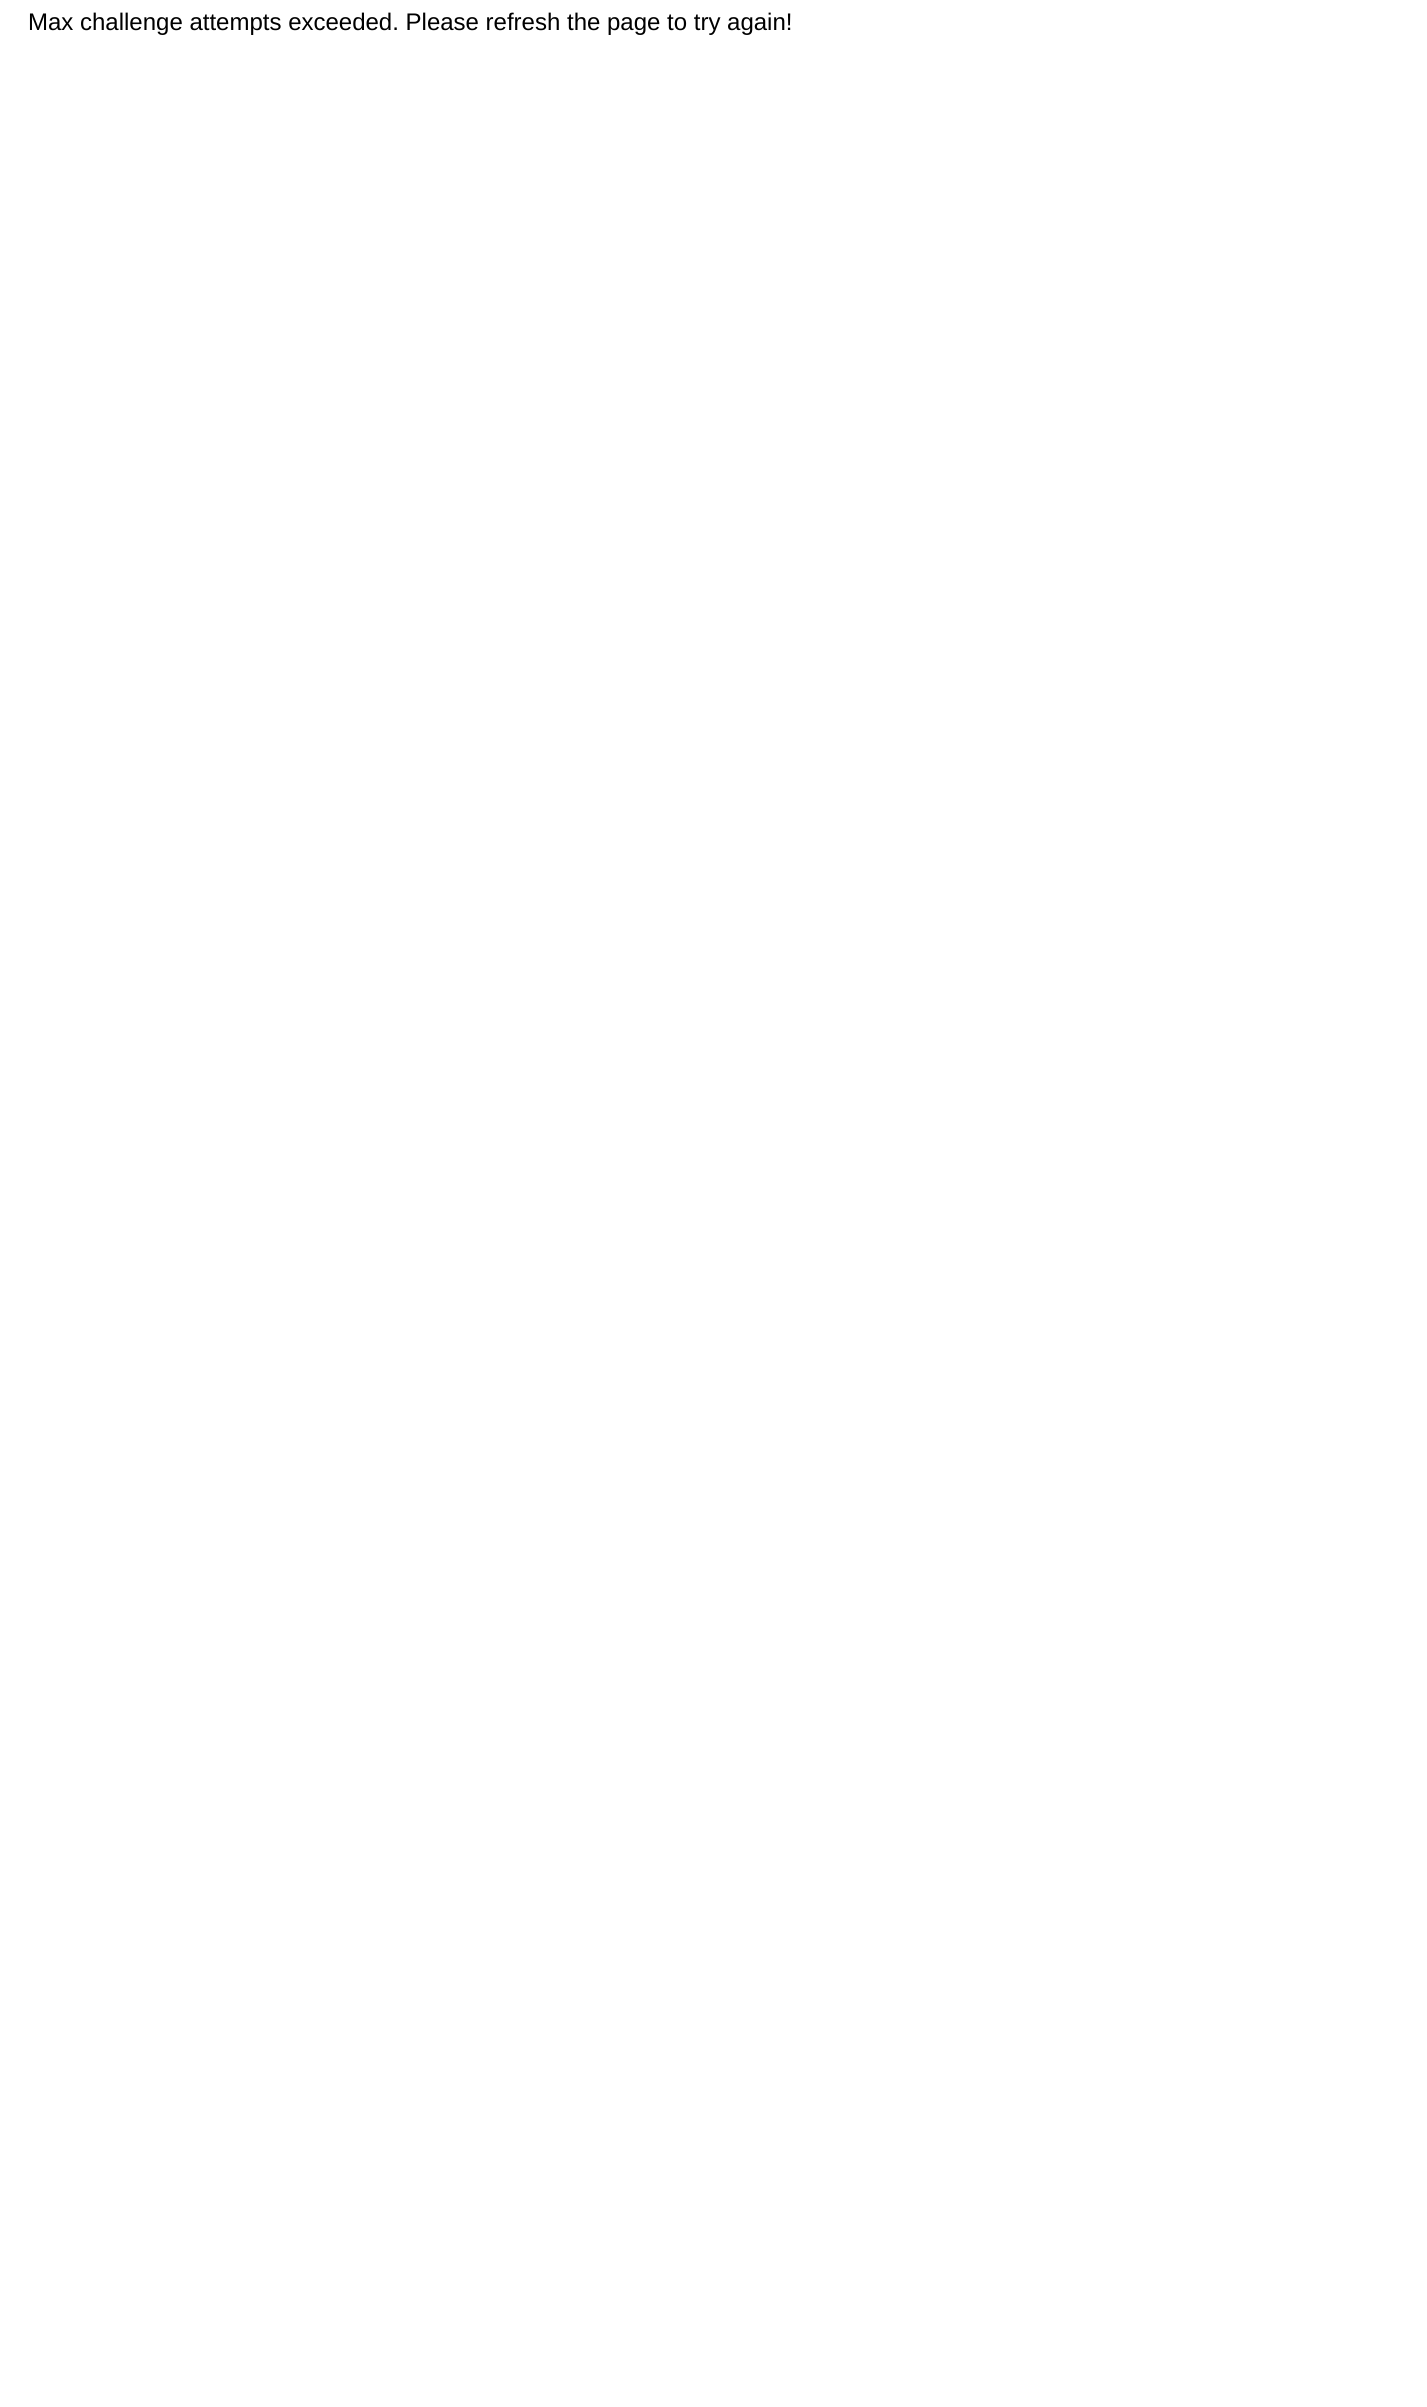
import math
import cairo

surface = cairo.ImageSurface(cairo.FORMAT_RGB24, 1427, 2407)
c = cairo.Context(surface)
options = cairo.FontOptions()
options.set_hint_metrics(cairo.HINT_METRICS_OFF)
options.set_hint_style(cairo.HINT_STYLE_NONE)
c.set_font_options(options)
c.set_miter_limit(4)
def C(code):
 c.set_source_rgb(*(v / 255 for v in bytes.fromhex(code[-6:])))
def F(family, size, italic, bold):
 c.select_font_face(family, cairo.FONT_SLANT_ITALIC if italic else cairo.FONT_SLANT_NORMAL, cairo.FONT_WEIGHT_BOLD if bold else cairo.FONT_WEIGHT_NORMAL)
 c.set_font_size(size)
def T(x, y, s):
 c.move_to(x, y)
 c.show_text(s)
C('ffffff')
c.paint()
F('Liberation Sans',24,0,0)
C('000000')
T(28,30,'Max challenge attempts exceeded. Please refresh the page to try again!')
surface.write_to_png('o.png')
